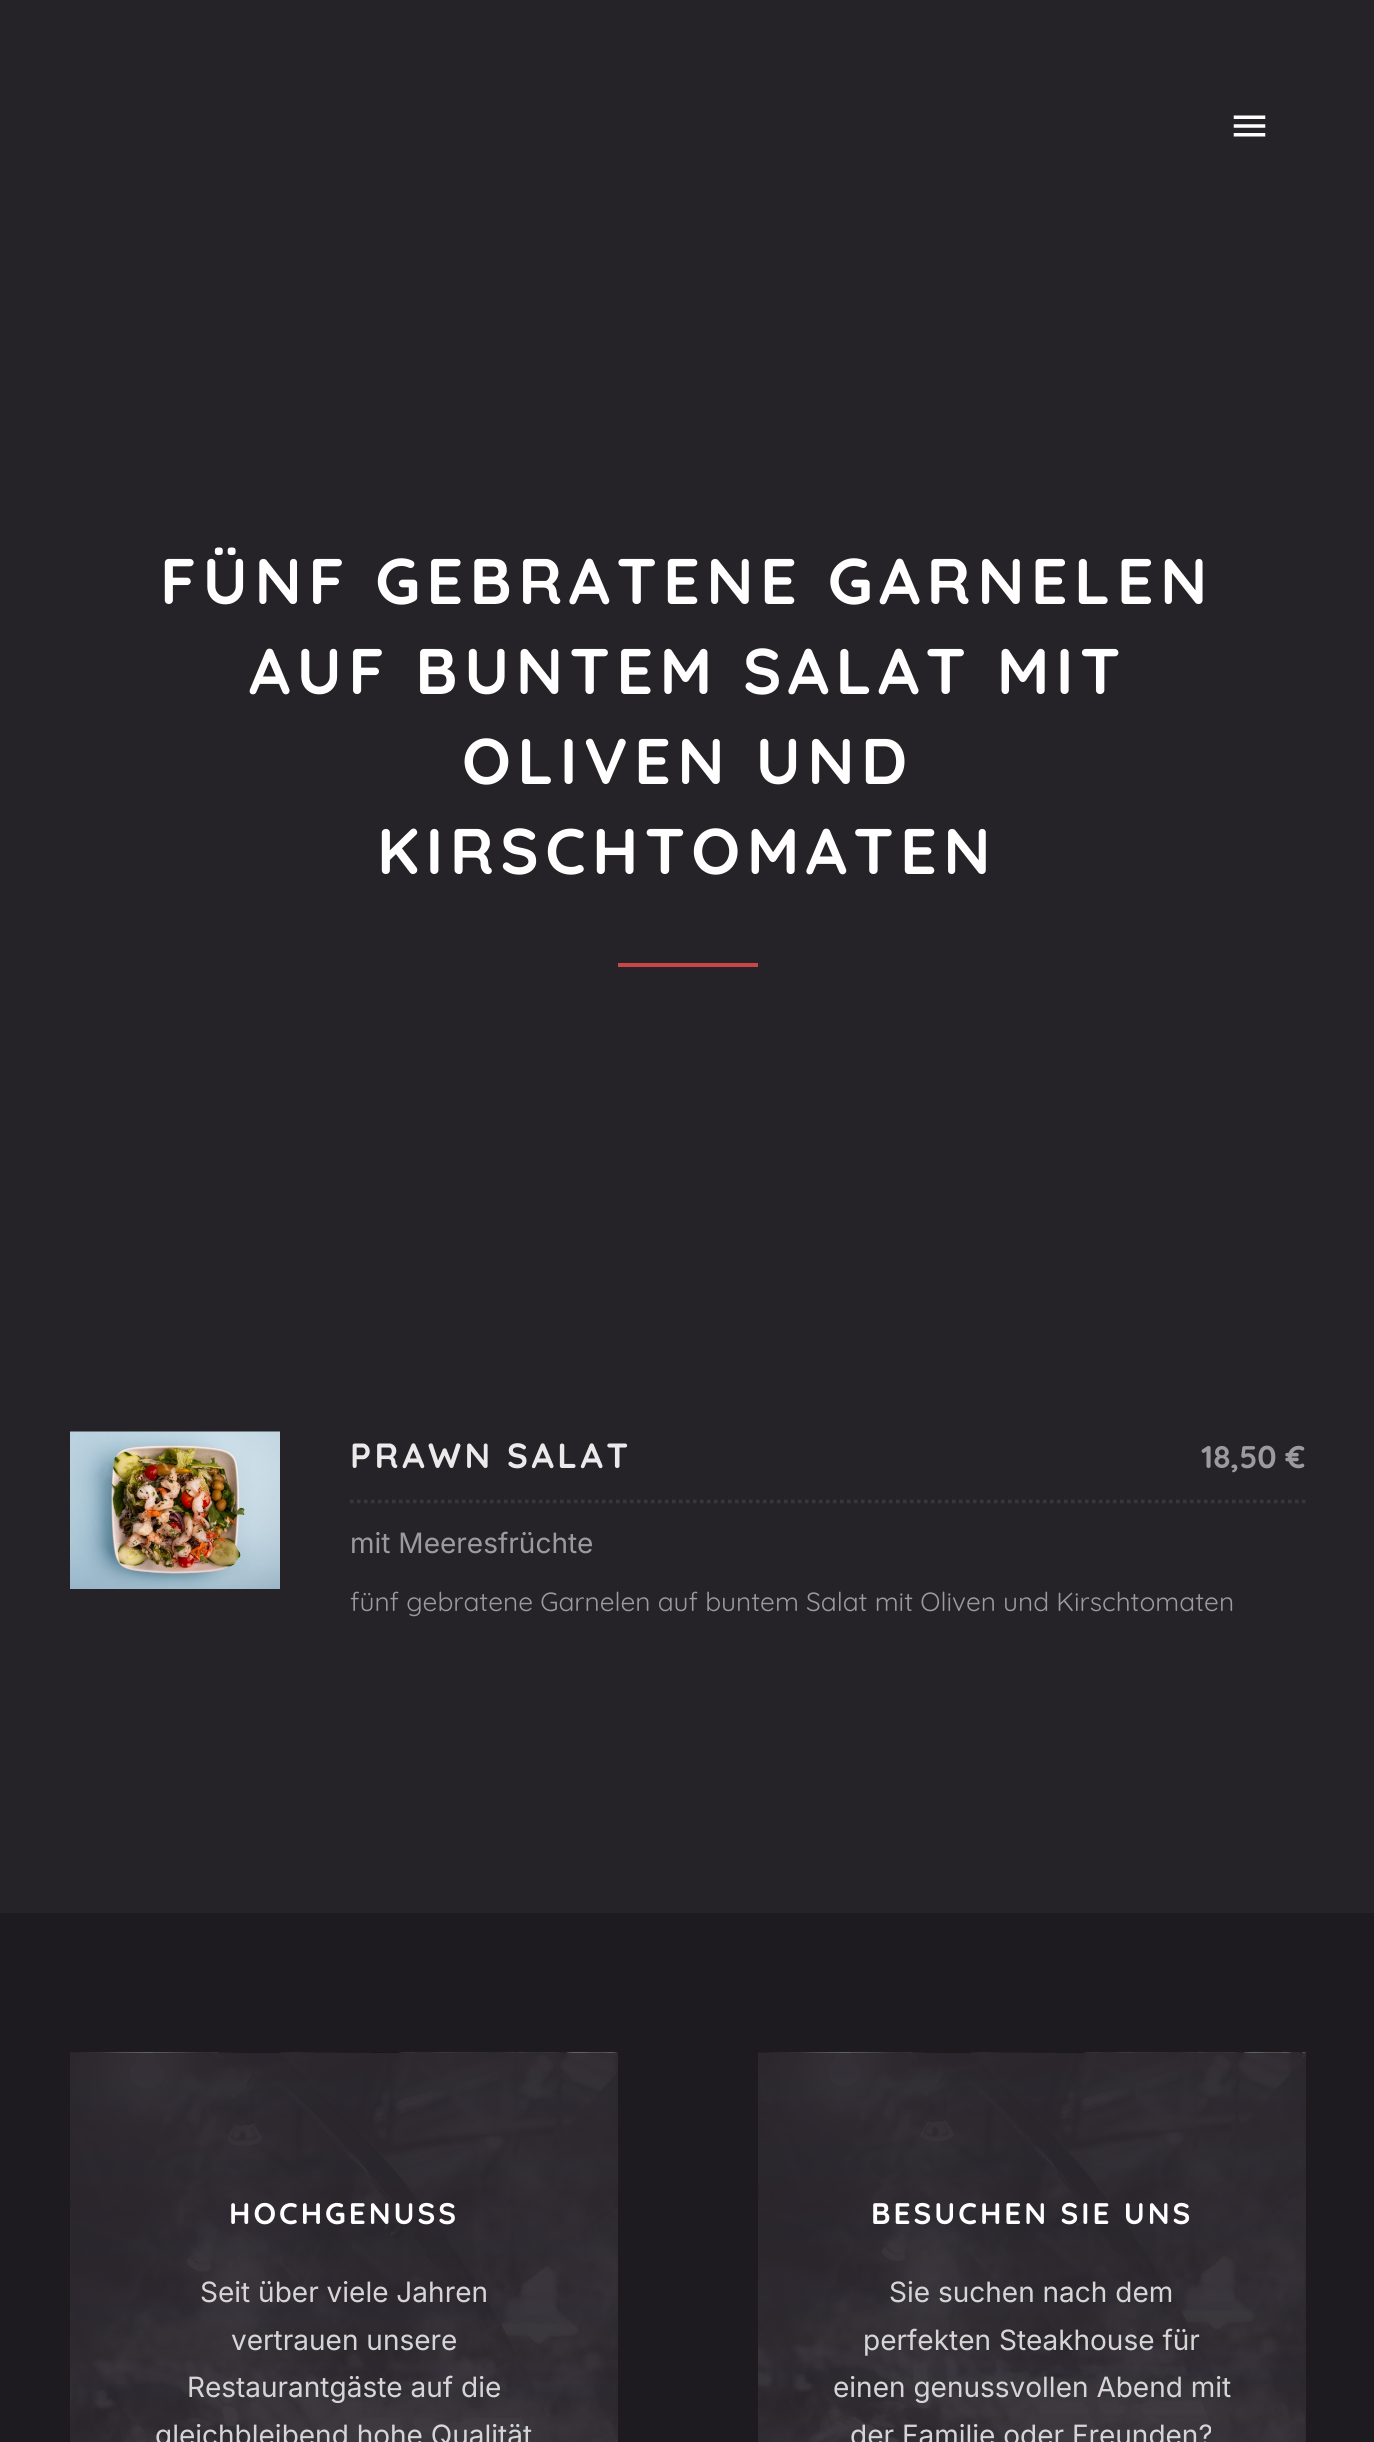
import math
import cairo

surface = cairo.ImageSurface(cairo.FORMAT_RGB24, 1374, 2442)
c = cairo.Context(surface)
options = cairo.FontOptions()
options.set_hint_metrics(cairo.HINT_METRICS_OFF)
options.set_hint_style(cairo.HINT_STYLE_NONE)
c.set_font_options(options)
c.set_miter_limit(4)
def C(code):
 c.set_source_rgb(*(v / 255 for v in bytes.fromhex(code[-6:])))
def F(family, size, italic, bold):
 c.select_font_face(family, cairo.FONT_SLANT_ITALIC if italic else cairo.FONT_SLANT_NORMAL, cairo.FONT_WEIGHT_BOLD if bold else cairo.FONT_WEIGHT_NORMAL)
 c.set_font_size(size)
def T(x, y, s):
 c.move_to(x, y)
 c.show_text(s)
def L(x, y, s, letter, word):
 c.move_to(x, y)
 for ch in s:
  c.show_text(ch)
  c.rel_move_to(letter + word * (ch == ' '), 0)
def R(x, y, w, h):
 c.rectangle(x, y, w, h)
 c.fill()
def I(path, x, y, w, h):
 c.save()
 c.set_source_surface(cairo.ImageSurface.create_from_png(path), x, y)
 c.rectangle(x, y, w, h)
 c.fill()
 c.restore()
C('262328')
c.paint()
I('1.png',1233,115,33,22)
F('Quicksand',64.4,0,1)
C('ffffff')
L(160,604,'FÜNF GEBRATENE GARNELEN',6.4,0)
L(249,694,'AUF BUNTEM SALAT MIT',6.4,0)
L(462,784,'OLIVEN UND',6.4,0)
L(377,874,'KIRSCHTOMATEN',6.4,0)
C('c84646')
R(618,963,140,4)
I('2.png',70,1431,210,158)
F('Quicksand',35,0,1)
C('eaeaea')
L(350,1468,'PRAWN SALAT',3.5,0)
F('Quicksand',31.5,0,1)
C('9c9a9c')
T(1201,1468,'18,50 €')
c.new_path()
c.move_to(350,1501.5)
c.line_to(1305.5,1501.5)
C('3a373b')
c.set_line_width(3.5)
c.set_dash([3.5,3.5])
c.stroke()
F('Inter',28,0,0)
C('9c9a9c')
T(350,1553,'mit Meeresfrüchte')
F('Quicksand',26.25,0,0)
T(350,1611,'fünf gebratene Garnelen auf buntem Salat mit Oliven und Kirschtomaten')
C('1e1b20')
R(0,1913,1374,529)
C('2b272e')
R(70,2053,548,389)
I('3.png',70,2052,548,390)
c.set_source_rgba(0.169,0.153,0.18,0.6)
R(70,2053,548,389)
gradient = cairo.LinearGradient(344,2053,344,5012)
gradient.add_color_stop_rgba(0,0.169,0.153,0.18,.9)
gradient.add_color_stop_rgba(1,0.169,0.153,0.18,0)
c.set_source(gradient)
R(70,2053,548,389)
F('Quicksand',29.75,0,1)
C('ffffff')
L(229,2224,'HOCHGENUSS',3,0)
F('Inter',28,0,0)
C('d6d5d6')
T(200,2302,'Seit über viele Jahren')
T(231,2350,'vertrauen unsere')
T(187,2397,'Restaurantgäste auf die')
T(155,2445,'gleichbleibend hohe Qualität')
C('2b272e')
R(758,2053,548,389)
I('4.png',758,2052,548,390)
c.set_source_rgba(0.169,0.153,0.18,0.6)
R(758,2053,548,389)
gradient = cairo.LinearGradient(1032,2053,1032,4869)
gradient.add_color_stop_rgba(0,0.169,0.153,0.18,.9)
gradient.add_color_stop_rgba(1,0.169,0.153,0.18,0)
c.set_source(gradient)
R(758,2053,548,389)
F('Quicksand',29.75,0,1)
C('ffffff')
L(871,2224,'BESUCHEN SIE UNS',3,0)
F('Inter',28,0,0)
C('d6d5d6')
T(889,2302,'Sie suchen nach dem')
T(863,2350,'perfekten Steakhouse für')
T(833,2397,'einen genussvollen Abend mit')
T(850,2445,'der Familie oder Freunden?')
surface.write_to_png('o.png')
